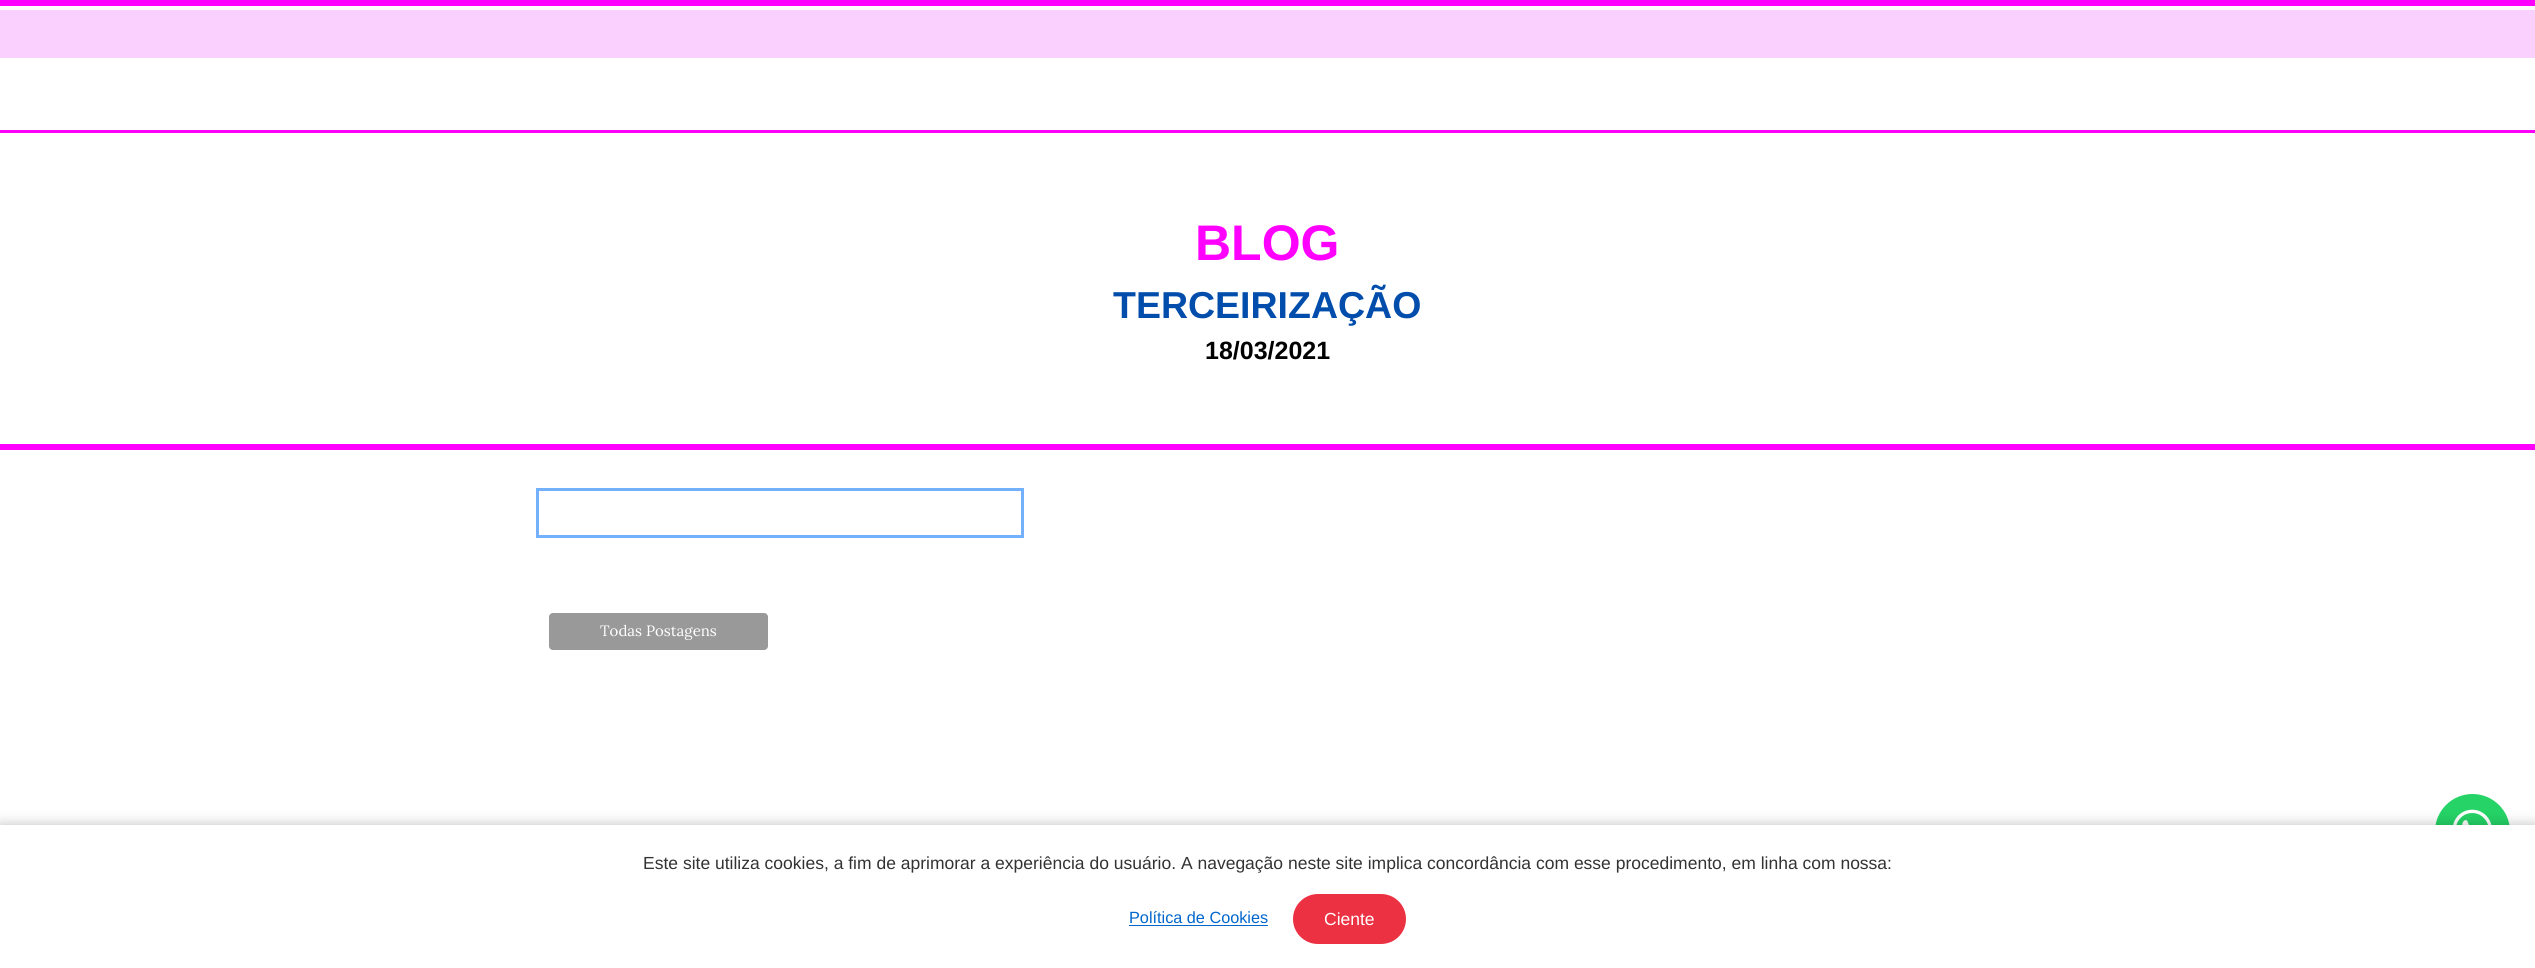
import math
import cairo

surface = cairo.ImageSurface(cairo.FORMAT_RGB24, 2535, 968)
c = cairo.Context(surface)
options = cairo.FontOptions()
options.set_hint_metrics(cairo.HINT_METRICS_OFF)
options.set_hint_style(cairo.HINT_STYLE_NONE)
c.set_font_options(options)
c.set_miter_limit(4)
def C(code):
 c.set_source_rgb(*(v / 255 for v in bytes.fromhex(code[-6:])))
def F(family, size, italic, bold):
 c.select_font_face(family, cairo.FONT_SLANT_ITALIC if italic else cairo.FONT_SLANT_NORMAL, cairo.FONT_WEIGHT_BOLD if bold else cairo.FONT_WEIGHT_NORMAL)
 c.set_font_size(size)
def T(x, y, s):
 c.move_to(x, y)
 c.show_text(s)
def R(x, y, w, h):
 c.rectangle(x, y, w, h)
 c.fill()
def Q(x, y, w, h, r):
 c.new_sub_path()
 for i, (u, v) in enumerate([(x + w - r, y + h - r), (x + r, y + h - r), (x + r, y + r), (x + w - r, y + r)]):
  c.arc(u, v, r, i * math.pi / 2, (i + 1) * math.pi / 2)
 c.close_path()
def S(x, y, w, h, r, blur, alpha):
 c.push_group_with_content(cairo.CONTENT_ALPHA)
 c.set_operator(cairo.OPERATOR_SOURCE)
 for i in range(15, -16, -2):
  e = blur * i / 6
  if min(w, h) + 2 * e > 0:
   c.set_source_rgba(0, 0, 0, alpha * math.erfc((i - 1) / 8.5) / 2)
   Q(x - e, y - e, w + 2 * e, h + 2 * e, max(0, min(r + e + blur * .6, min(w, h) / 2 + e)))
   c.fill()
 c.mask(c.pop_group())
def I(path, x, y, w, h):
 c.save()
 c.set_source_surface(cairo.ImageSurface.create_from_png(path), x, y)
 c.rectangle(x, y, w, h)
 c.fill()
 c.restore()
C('ffffff')
c.paint()
C('ff00ff')
R(0,0,2535,6)
C('fad0fe')
R(0,10,2535,48)
C('ff00ff')
R(0,130,2535,3)
F('Liberation Sans',50,0,1)
T(1195,260,'BLOG')
F('Liberation Sans',37.5,0,1)
C('014dac')
T(1113,318,'TERCEIRIZAÇÃO')
F('Liberation Sans',25,0,1)
C('000000')
T(1205,359,'18/03/2021')
C('ff00ff')
R(0,444,2535,6)
c.rectangle(537.5,489.5,485,47)
C('73b0fd')
c.set_line_width(3)
c.stroke()
C('999999')
Q(549,613,219,37,4)
c.fill()
F('Lora',15,0,0)
C('ffffff')
T(600,636,'Todas Postagens')
C('25d366')
c.new_path()
c.arc(2472.5,831.5,37.5,0,2 * math.pi)
c.fill()
I('1.png',2453,809,39,16)
C('000000')
S(0,823,2535,143,0,6,.2)
C('ffffff')
R(0,825,2535,143)
F('Liberation Sans',17.5,0,0)
C('333333')
T(643,869,'Este site utiliza cookies, a fim de aprimorar a experiência do usuário. A navegação neste site implica concordância com esse procedimento, em linha com nossa:')
F('Liberation Sans',16.25,0,0)
C('0066cc')
T(1129,923,'Política de Cookies')
R(1129,925,139,1)
C('ec3143')
Q(1293,894,113,50,25)
c.fill()
F('Liberation Sans',17.5,0,0)
C('ffffff')
T(1324,925,'Ciente')
surface.write_to_png('o.png')
